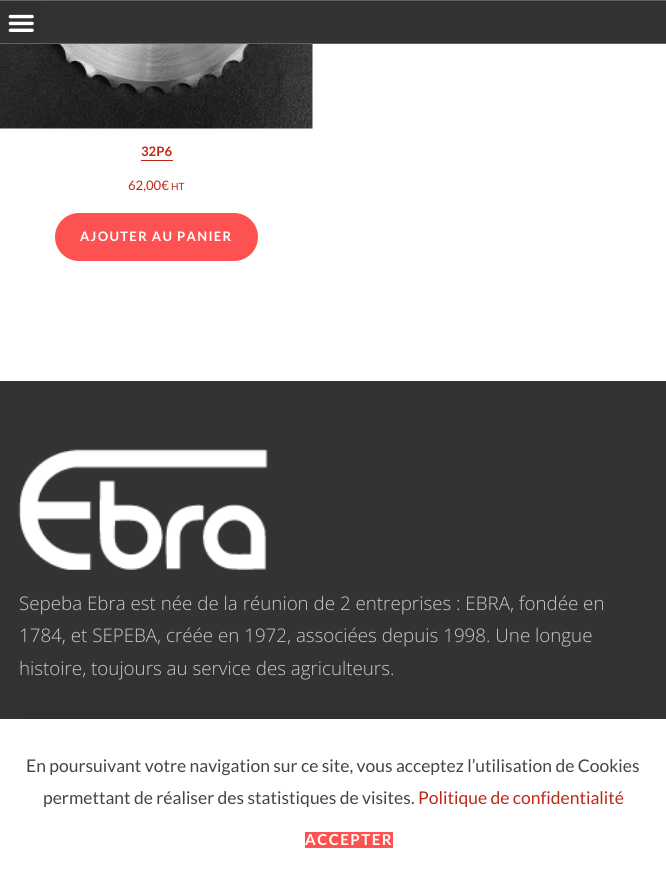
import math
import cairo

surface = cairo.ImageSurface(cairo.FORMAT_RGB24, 666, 879)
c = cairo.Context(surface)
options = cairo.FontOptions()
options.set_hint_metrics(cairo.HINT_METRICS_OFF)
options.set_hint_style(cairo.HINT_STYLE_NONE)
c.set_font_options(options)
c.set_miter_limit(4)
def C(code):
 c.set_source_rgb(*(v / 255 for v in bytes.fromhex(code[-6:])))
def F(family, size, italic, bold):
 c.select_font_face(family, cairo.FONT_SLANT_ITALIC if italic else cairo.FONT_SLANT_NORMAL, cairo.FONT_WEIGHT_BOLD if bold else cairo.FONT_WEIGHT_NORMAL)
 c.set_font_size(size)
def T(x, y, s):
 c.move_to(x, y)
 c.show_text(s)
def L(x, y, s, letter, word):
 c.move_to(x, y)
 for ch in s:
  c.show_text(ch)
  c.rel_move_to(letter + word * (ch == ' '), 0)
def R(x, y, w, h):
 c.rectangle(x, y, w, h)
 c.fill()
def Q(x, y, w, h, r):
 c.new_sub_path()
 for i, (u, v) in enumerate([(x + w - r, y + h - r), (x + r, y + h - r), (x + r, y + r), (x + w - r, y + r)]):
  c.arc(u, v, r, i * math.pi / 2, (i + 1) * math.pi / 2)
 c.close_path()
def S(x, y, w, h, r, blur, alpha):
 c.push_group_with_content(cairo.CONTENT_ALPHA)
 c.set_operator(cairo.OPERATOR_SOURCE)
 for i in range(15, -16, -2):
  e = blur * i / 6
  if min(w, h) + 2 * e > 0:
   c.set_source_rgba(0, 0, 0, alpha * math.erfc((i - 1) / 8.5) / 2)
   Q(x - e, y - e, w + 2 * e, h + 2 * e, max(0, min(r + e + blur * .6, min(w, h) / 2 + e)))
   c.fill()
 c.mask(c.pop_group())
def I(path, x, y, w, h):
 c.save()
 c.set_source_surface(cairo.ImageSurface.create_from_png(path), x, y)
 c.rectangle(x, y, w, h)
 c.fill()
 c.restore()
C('ffffff')
c.paint()
C('333333')
R(0,1,666,42)
C('616263')
R(0,0,666,1)
R(0,43,666,1)
C('303030')
Q(0,1,41,42,4)
c.fill()
I('1.png',8,14,26,18)
I('2.png',0,44,313,85)
F('Lato',13.1,0,1)
C('bc2818')
T(141,156,'32P6')
R(141,160,32,1)
F('Lato',13.1,0,0)
T(128,190,'62,00€')
F('Lato',10,0,0)
T(171,190,'HT')
C('fe5252')
Q(55,213,203,48,24)
c.fill()
F('Lato',13.1,0,1)
C('ffffff')
L(80,241,'AJOUTER AU PANIER',1.3,0)
C('333333')
R(0,381,666,338)
I('3.png',18,449,250,121)
F('Open Sans Light',18.75,0,0)
C('cccccc')
T(19,610,'Sepeba Ebra est née de la réunion de 2 entreprises : EBRA, fondée en')
T(19,642,'1784, et SEPEBA, créée en 1972, associées depuis 1998. Une longue')
T(19,675,'histoire, toujours au service des agriculteurs.')
C('000000')
S(0,744,666,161,0,62.5,.1)
C('ffffff')
R(0,719,666,160)
F('Lato',17.5,0,0)
C('444444')
T(26,772,'En poursuivant votre navigation sur ce site, vous acceptez l’utilisation de Cookies')
T(43,804,'permettant de réaliser des statistiques de visites.')
C('bc2818')
T(418,804,'Politique de confidentialité')
C('fe5252')
R(305,832,88,16)
F('Lato',15,0,1)
C('ffffff')
L(305,845,'ACCEPTER',1.5,0)
surface.write_to_png('o.png')
